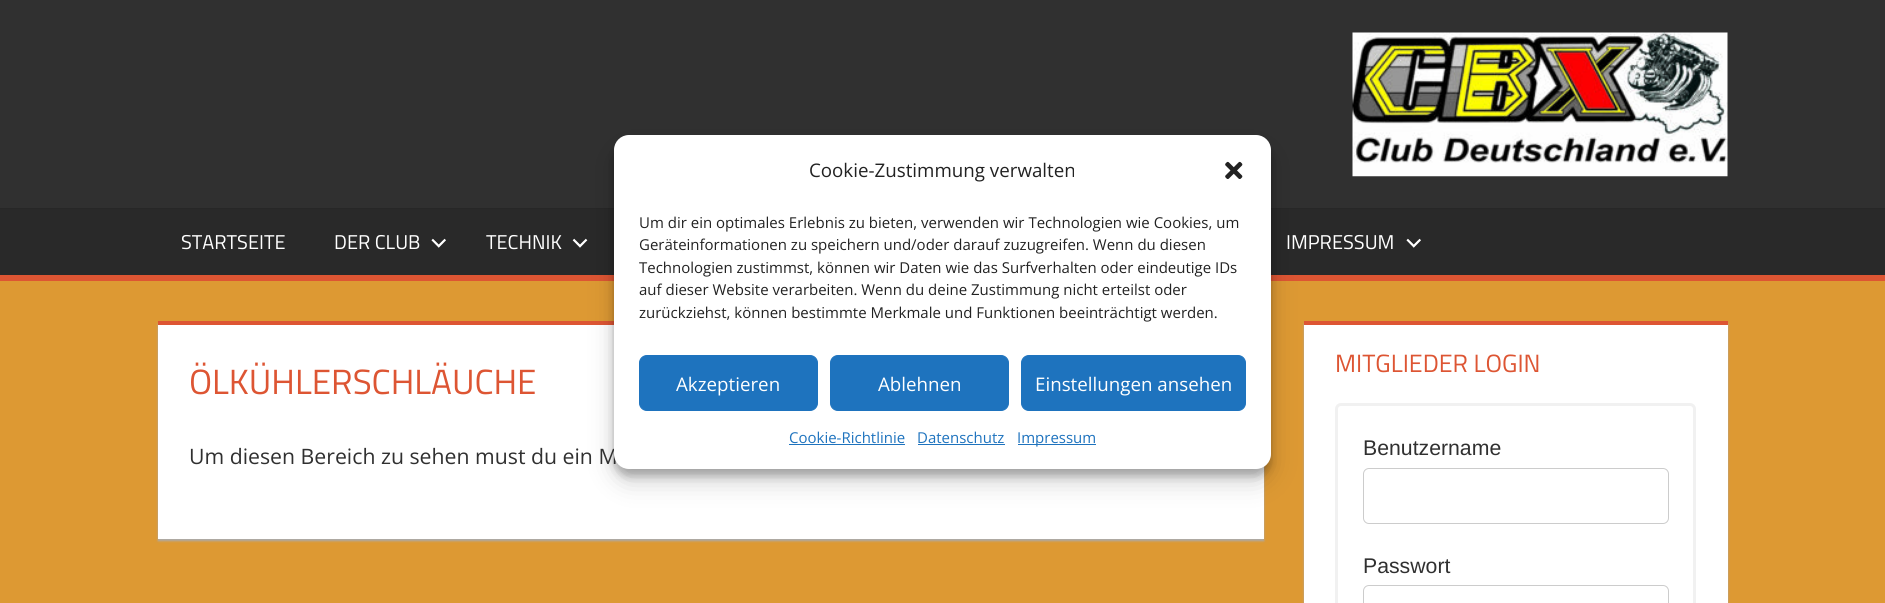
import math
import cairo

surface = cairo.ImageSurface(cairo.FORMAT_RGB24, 1885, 603)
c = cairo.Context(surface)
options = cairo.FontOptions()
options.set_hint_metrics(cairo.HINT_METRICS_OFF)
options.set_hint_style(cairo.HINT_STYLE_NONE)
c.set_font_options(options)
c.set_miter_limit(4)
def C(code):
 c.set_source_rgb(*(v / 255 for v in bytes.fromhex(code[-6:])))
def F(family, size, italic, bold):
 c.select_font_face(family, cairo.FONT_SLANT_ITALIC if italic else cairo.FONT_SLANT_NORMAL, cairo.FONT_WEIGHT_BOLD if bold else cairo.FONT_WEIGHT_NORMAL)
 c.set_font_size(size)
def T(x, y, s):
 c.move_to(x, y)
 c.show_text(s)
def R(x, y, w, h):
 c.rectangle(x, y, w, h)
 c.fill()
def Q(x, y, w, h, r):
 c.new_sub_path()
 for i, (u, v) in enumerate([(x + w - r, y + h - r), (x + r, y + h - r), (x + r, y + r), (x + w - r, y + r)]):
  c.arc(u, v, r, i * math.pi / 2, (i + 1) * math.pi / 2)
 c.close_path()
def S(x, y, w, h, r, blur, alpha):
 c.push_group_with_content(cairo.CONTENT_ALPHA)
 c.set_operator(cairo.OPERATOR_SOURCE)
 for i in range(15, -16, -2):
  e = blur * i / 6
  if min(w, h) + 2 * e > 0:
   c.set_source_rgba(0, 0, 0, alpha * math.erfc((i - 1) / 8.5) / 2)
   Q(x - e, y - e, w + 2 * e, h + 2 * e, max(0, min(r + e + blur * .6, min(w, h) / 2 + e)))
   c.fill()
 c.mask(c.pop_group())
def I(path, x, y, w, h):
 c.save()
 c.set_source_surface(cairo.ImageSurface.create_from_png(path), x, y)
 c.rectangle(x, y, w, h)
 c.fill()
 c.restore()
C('dd9933')
c.paint()
C('303030')
R(0,0,1885,208)
C('292929')
R(0,209,1885,66)
C('272727')
R(0,208,1885,1)
C('dd5533')
R(0,275,1885,6)
C('aaaaaa')
S(158,324,1106,217,0,1,1)
C('ffffff')
R(158,325,1106,214)
C('dd5533')
R(158,321,456,4)
C('000000')
S(614,143,657,333,15,4,.23)
I('4.png',572,238,16,10)
C('aaaaaa')
S(1304,324,424,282,0,1,1)
C('ffffff')
R(1304,325,424,278)
C('dd5533')
R(1304,321,424,4)
C('000000')
S(614,148,657,333,15,12.5,.19)
F('Open Sans',21.25,0,0)
C('303030')
T(189,464,'Um diesen Bereich zu sehen must du ein M')
C('ffffff')
Q(614,135,657,334,15)
c.fill()
F('Open Sans',18.75,0,0)
C('222222')
T(809,177,'Cookie-Zustimmung verwalten')
I('1.png',1225,161,18,18)
F('Open Sans',15,0,0)
T(639,228,'Um dir ein optimales Erlebnis zu bieten, verwenden wir Technologien wie Cookies, um')
T(639,250,'Geräteinformationen zu speichern und/oder darauf zuzugreifen. Wenn du diesen')
T(639,273,'Technologien zustimmst, können wir Daten wie das Surfverhalten oder eindeutige IDs')
T(639,295,'auf dieser Website verarbeiten. Wenn du deine Zustimmung nicht erteilst oder')
T(639,318,'zurückziehst, können bestimmte Merkmale und Funktionen beeinträchtigt werden.')
C('1e73be')
Q(639.5,355.5,178,55,7.5)
c.fill_preserve()
c.set_line_width(1)
c.stroke()
F('Open Sans',18.75,0,0)
C('ffffff')
T(676,391,'Akzeptieren')
C('1e73be')
Q(830.5,355.5,178,55,7.5)
c.fill_preserve()
c.stroke()
C('ffffff')
T(878,391,'Ablehnen')
C('1e73be')
Q(1021.5,355.5,224,55,7.5)
c.fill_preserve()
c.stroke()
C('ffffff')
T(1035,391,'Einstellungen ansehen')
F('Open Sans',15,0,0)
C('1e73be')
T(789,443,'Cookie-Richtlinie')
R(789,444,116,1)
T(917,443,'Datenschutz')
R(918,444,87,1)
R(1018,444,78,1)
T(1017,443,'Impressum')
I('2.png',1352,32,376,145)
F('Titillium Web',20,0,0)
C('ffffff')
T(181,249,'STARTSEITE')
T(334,249,'DER CLUB')
I('3.png',431,238,15,10)
T(486,249,'TECHNIK')
T(1286,249,'IMPRESSUM')
I('3.png',1406,238,15,10)
F('Titillium Web',35,0,0)
C('dd5533')
T(189,394,'ÖLKÜHLERSCHLÄUCHE')
F('Titillium Web',25,0,0)
T(1335,372,'MITGLIEDER LOGIN')
Q(1336.5,404.5,358,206,4.5)
C('f1f1f1')
c.set_line_width(3)
c.stroke()
F('Liberation Sans',21.25,0,0)
C('303030')
T(1363,455,'Benutzername')
Q(1363.5,468.5,305,55,5.5)
C('cccccc')
c.set_line_width(1)
c.stroke()
C('303030')
T(1363,573,'Passwort')
Q(1363.5,585.5,305,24,5.5)
C('cccccc')
c.stroke()
surface.write_to_png('o.png')
